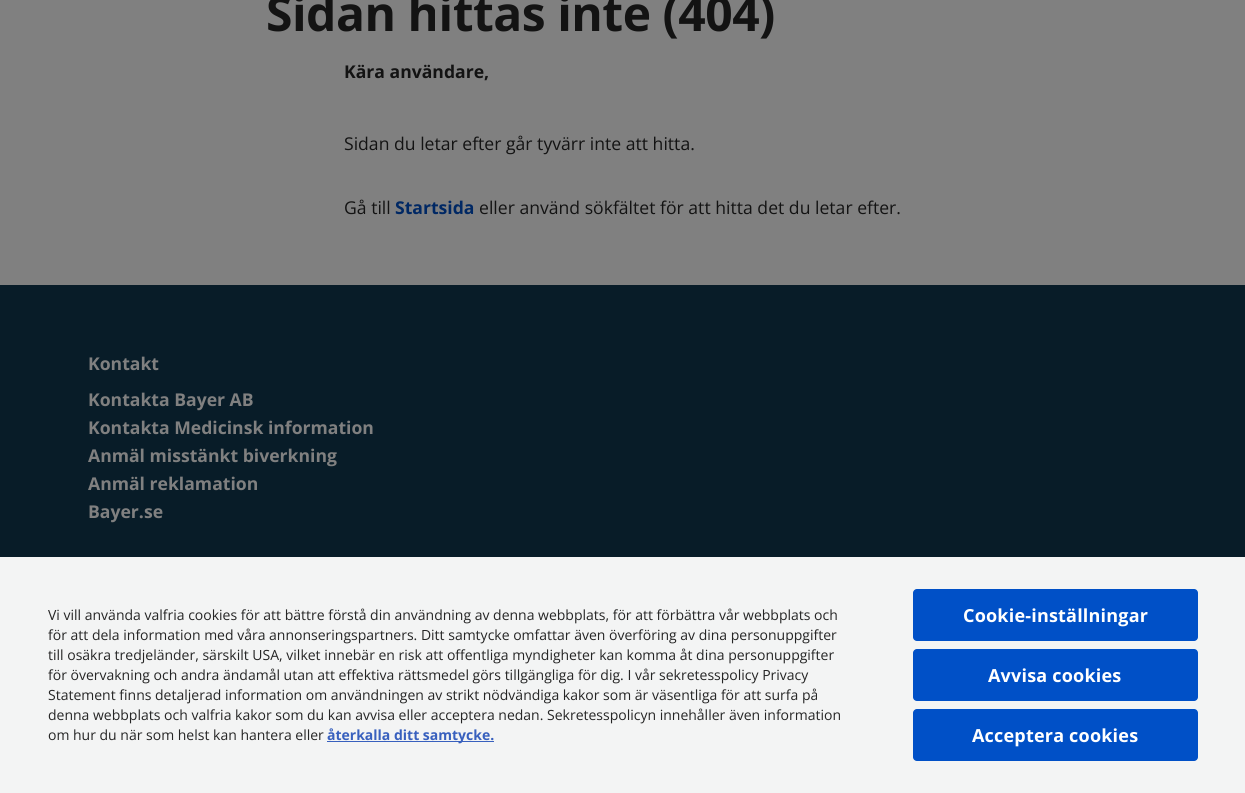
import math
import cairo

surface = cairo.ImageSurface(cairo.FORMAT_RGB24, 1245, 793)
c = cairo.Context(surface)
options = cairo.FontOptions()
options.set_hint_metrics(cairo.HINT_METRICS_OFF)
options.set_hint_style(cairo.HINT_STYLE_NONE)
c.set_font_options(options)
c.set_miter_limit(4)
def C(code):
 c.set_source_rgb(*(v / 255 for v in bytes.fromhex(code[-6:])))
def F(family, size, italic, bold):
 c.select_font_face(family, cairo.FONT_SLANT_ITALIC if italic else cairo.FONT_SLANT_NORMAL, cairo.FONT_WEIGHT_BOLD if bold else cairo.FONT_WEIGHT_NORMAL)
 c.set_font_size(size)
def T(x, y, s):
 c.move_to(x, y)
 c.show_text(s)
def L(x, y, s, letter, word):
 c.move_to(x, y)
 for ch in s:
  c.show_text(ch)
  c.rel_move_to(letter + word * (ch == ' '), 0)
def R(x, y, w, h):
 c.rectangle(x, y, w, h)
 c.fill()
def Q(x, y, w, h, r):
 c.new_sub_path()
 for i, (u, v) in enumerate([(x + w - r, y + h - r), (x + r, y + h - r), (x + r, y + r), (x + w - r, y + r)]):
  c.arc(u, v, r, i * math.pi / 2, (i + 1) * math.pi / 2)
 c.close_path()
C('808080')
c.paint()
F('Open Sans',48,0,1)
C('131313')
L(266,31,'Sidan hittas inte (404)',-.5,0)
F('Open Sans',17.6,0,1)
T(344,78,'Kära användare,')
F('Open Sans',17.6,0,0)
T(344,150,'Sidan du letar efter går tyvärr inte att hitta.')
T(344,214,'Gå till')
F('Open Sans',17.6,0,1)
C('002864')
T(395,214,'Startsida')
F('Open Sans',17.6,0,0)
C('131313')
T(479,214,'eller använd sökfältet för att hitta det du letar efter.')
C('081c28')
R(0,285,1245,272)
F('Open Sans',17.6,0,1)
C('808080')
T(88,370,'Kontakt')
T(88,406,'Kontakta Bayer AB')
T(88,434,'Kontakta Medicinsk information')
T(88,462,'Anmäl misstänkt biverkning')
T(88,490,'Anmäl reklamation')
T(88,518,'Bayer.se')
C('f3f4f4')
R(0,557,1245,236)
F('Open Sans',14,0,0)
C('252525')
T(48,620,'Vi vill använda valfria cookies för att bättre förstå din användning av denna webbplats, för att förbättra vår webbplats och')
T(48,640,'för att dela information med våra annonseringspartners. Ditt samtycke omfattar även överföring av dina personuppgifter')
T(48,660,'till osäkra tredjeländer, särskilt USA, vilket innebär en risk att offentliga myndigheter kan komma åt dina personuppgifter')
T(48,680,'för övervakning och andra ändamål utan att effektiva rättsmedel görs tillgängliga för dig. I vår sekretesspolicy Privacy')
T(48,700,'Statement finns detaljerad information om användningen av strikt nödvändiga kakor som är väsentliga för att surfa på')
T(48,720,'denna webbplats och valfria kakor som du kan avvisa eller acceptera nedan. Sekretesspolicyn innehåller även information')
T(48,740,'om hur du när som helst kan hantera eller')
C('3860be')
R(327,741,167,1)
F('Open Sans',14,0,1)
T(327,740,'återkalla ditt samtycke.')
C('0050c7')
Q(913,589,285,52,4)
c.fill()
F('Open Sans',18,0,1)
C('ffffff')
L(963,622,'Cookie-inställningar',.2,0)
C('0050c7')
Q(913,649,285,52,4)
c.fill()
C('ffffff')
L(988,682,'Avvisa cookies',.2,0)
C('0050c7')
Q(913,709,285,52,4)
c.fill()
C('ffffff')
L(972,742,'Acceptera cookies',.2,0)
surface.write_to_png('o.png')
